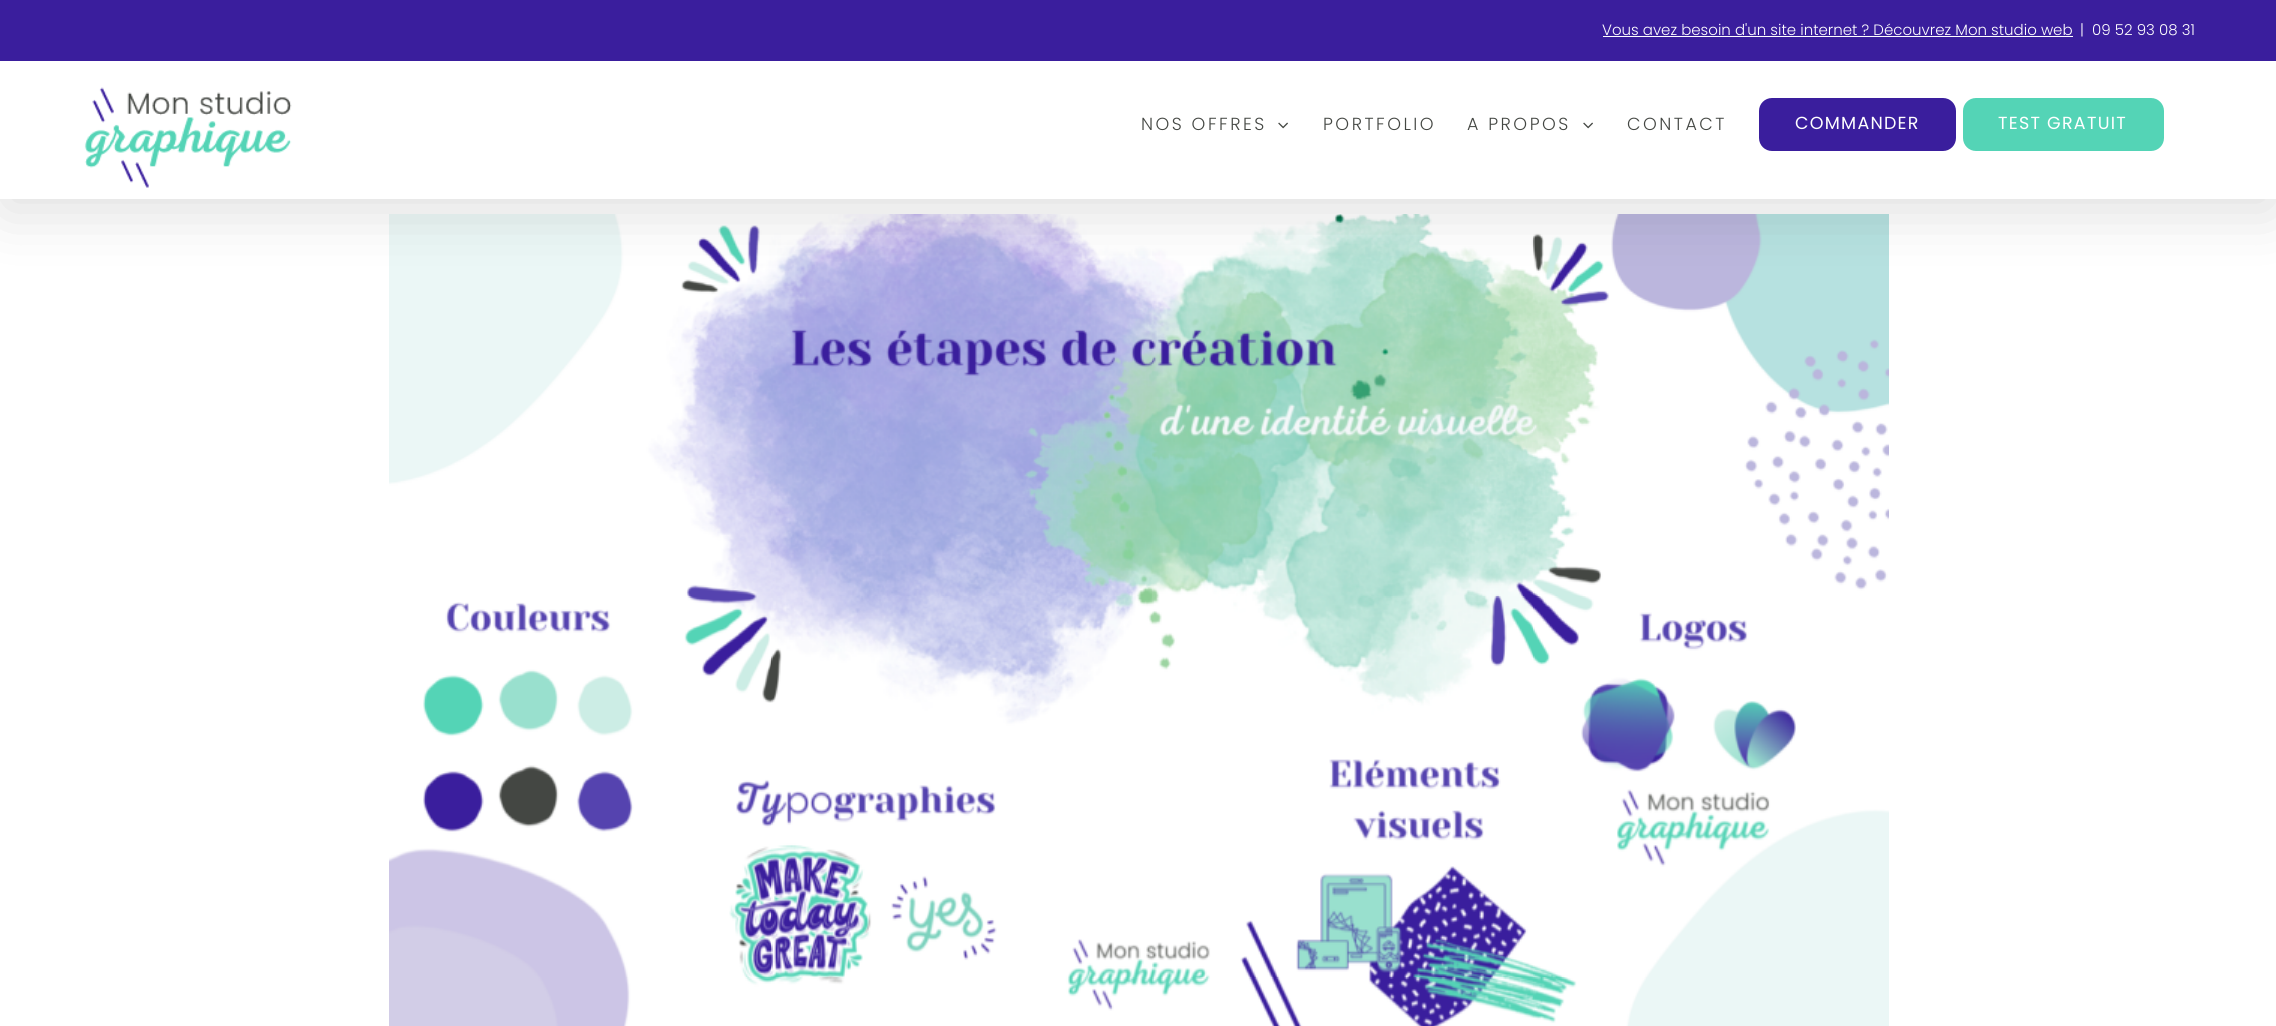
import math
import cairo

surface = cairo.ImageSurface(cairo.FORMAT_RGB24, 2276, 1026)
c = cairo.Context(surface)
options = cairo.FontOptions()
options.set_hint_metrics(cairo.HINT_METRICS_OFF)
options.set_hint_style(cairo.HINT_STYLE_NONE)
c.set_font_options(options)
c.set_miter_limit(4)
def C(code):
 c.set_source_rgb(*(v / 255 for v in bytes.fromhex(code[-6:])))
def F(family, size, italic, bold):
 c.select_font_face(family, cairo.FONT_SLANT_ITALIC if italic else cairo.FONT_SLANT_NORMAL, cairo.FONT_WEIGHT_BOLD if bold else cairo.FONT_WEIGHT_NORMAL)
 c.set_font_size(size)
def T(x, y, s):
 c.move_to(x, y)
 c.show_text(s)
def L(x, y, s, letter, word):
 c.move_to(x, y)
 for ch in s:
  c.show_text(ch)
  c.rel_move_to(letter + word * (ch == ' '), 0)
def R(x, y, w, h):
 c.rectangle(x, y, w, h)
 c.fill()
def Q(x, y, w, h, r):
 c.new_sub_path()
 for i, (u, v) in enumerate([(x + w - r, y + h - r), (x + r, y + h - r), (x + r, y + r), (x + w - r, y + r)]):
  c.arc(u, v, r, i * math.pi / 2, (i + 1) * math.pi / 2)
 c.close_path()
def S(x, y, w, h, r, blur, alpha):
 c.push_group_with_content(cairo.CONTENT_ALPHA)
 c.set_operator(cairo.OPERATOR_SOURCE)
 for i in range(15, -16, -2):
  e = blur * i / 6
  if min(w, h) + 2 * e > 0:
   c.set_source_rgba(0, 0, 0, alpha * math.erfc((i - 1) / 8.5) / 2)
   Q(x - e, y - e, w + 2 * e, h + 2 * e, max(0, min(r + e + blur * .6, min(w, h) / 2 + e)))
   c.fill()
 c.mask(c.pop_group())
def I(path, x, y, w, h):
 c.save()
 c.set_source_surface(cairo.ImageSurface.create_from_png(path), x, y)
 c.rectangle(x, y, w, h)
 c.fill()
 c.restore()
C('ffffff')
c.paint()
I('3.png',389,214,1500,812)
C('000000')
S(3,15,2271,194,0,31,.14)
C('3a1e9d')
R(0,0,2276,61)
F('Poppins Light',15,0,0)
C('ffffff')
T(1602,35,'Vous avez besoin d\'un site internet ? Découvrez Mon studio web')
R(1603,36,470,1)
T(2080,35,'|')
T(2092,35,'09 52 93 08 31')
R(0,61,2276,138)
I('1.png',84,87,208,101)
F('Poppins Light',17.5,0,0)
C('444743')
L(1141,130,'NOS OFFRES',2.5,0)
I('2.png',1278,122,10,7)
L(1323,130,'PORTFOLIO',2.5,0)
L(1467,130,'A PROPOS',2.5,0)
I('2.png',1583,122,10,7)
L(1627,130,'CONTACT',2.5,0)
C('3a1e9d')
Q(1759,98,197,53,13)
c.fill()
F('Poppins',17.5,0,0)
C('ffffff')
L(1795,129,'COMMANDER',1.25,0)
C('54d4b6')
Q(1963,98,201,53,13)
c.fill()
C('ffffff')
L(1998,129,'TEST GRATUIT',1.25,0)
surface.write_to_png('o.png')
